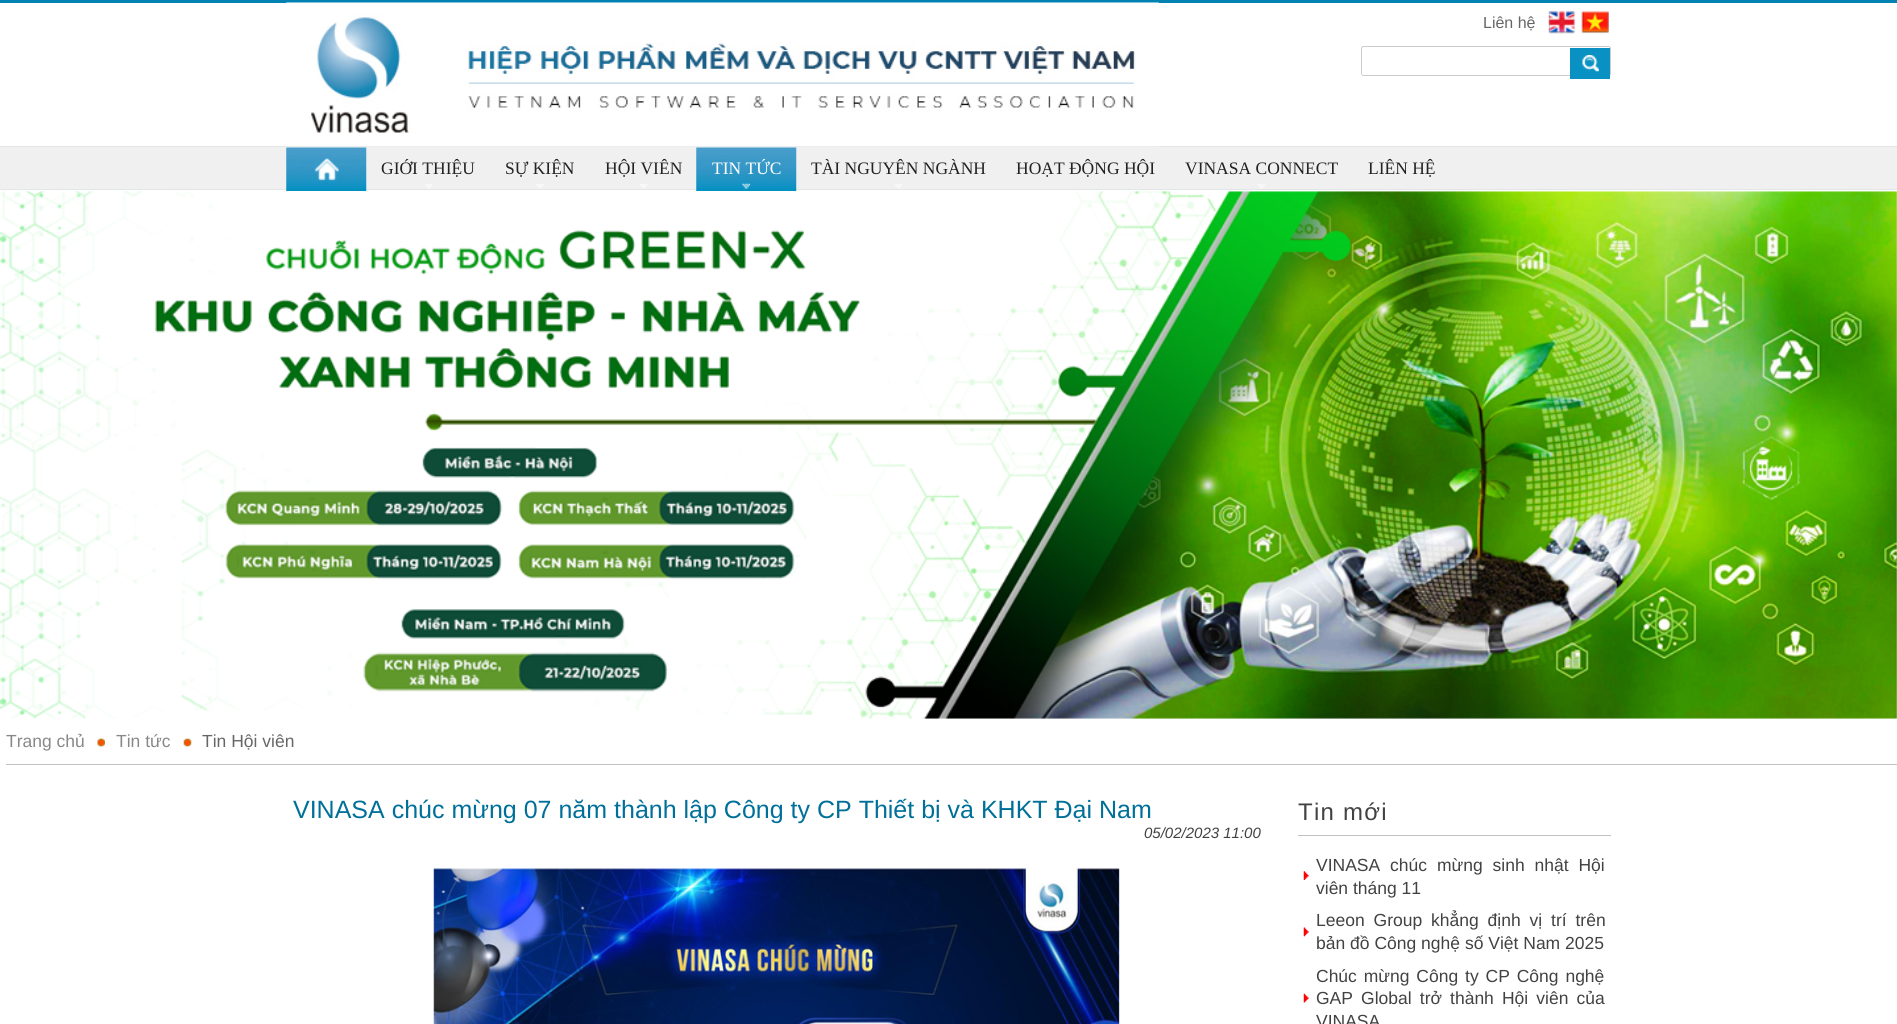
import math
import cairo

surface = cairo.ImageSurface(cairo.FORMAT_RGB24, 1897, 1024)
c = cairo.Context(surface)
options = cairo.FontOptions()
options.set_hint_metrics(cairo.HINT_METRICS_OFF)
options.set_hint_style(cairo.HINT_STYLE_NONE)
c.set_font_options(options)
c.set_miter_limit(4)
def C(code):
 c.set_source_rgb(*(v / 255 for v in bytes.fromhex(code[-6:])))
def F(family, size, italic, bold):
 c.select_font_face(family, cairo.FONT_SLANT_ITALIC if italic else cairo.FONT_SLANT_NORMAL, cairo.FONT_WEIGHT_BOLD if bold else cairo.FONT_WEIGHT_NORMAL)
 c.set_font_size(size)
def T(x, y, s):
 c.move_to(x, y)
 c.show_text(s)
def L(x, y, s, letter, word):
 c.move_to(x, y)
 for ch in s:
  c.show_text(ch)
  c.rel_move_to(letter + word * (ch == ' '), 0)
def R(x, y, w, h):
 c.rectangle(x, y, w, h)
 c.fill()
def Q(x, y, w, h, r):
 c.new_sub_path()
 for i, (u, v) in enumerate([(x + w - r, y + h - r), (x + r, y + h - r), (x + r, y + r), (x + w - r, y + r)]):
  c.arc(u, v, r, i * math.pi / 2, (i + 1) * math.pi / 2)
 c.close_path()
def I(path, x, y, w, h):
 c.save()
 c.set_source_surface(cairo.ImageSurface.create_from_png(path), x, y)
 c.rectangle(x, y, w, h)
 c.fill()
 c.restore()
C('ffffff')
c.paint()
C('0182b3')
R(0,0,1897,3)
C('e3e6e7')
R(0,146,1897,1)
I('1.png',286,2,873,145)
F('Liberation Sans',16,0,0)
C('666666')
T(1483,28,'Liên hệ')
I('2.png',1548,10,61,24)
Q(1361.5,46.5,249,29,2)
C('cccccc')
c.set_line_width(1)
c.stroke()
C('0991c3')
R(1570,48,40,31)
I('3.png',1582,55,17,17)
C('f0f0f0')
R(0,147,1897,42)
C('e3e6e7')
R(0,189,1897,1)
I('4.png',286,147,81,44)
I('5.png',314,158,25,23)
I('6.png',425,184,8,5)
F('Liberation Serif',17.5,0,0)
C('222222')
T(381,174,'GIỚI THIỆU')
I('7.png',536,184,8,5)
T(505,174,'SỰ KIỆN')
I('8.png',640,184,8,5)
T(605,174,'HỘI VIÊN')
I('9.png',696,147,101,44)
I('10.png',742,183,8,6)
C('ffffff')
T(712,174,'TIN TỨC')
I('8.png',895,184,8,5)
C('222222')
T(811,174,'TÀI NGUYÊN NGÀNH')
T(1016,174,'HOẠT ĐỘNG HỘI')
I('11.png',1257,184,8,5)
T(1185,174,'VINASA CONNECT')
T(1368,174,'LIÊN HỆ')
I('12.png',0,191,1897,528)
C('c0c0c0')
R(6,764,1891,1)
F('Liberation Sans',17.5,0,0)
C('888888')
T(6,747,'Trang chủ')
I('13.png',97,738,8,9)
T(116,747,'Tin tức')
I('14.png',183,738,9,9)
C('666666')
T(202,747,'Tin Hội viên')
F('Liberation Sans',25,0,0)
C('007099')
T(293,818,'VINASA chúc mừng 07 năm thành lập Công ty CP Thiết bị và KHKT Đại Nam')
F('Liberation Sans',15,1,0)
C('424242')
T(1144,838,'05/02/2023 11:00')
I('15.png',433,867,687,157)
C('c0c0c0')
R(1298,835,313,1)
F('Liberation Sans',24,0,0)
C('424242')
L(1298,820,'Tin mới',1.25,0)
I('16.png',1303,871,6,9)
F('Liberation Sans',17.5,0,0)
L(1316,871,'VINASA chúc mừng sinh nhật Hội',0,5)
T(1316,894,'viên tháng 11')
I('17.png',1303,927,6,10)
L(1316,926,'Leeon Group khẳng định vị trí trên',0,4)
T(1316,949,'bản đồ Công nghệ số Việt Nam 2025')
I('18.png',1303,993,6,10)
L(1316,982,'Chúc mừng Công ty CP Công nghệ',0,2)
L(1316,1004,'GAP Global trở thành Hội viên của',0,3.25)
T(1316,1027,'VINASA')
surface.write_to_png('o.png')
